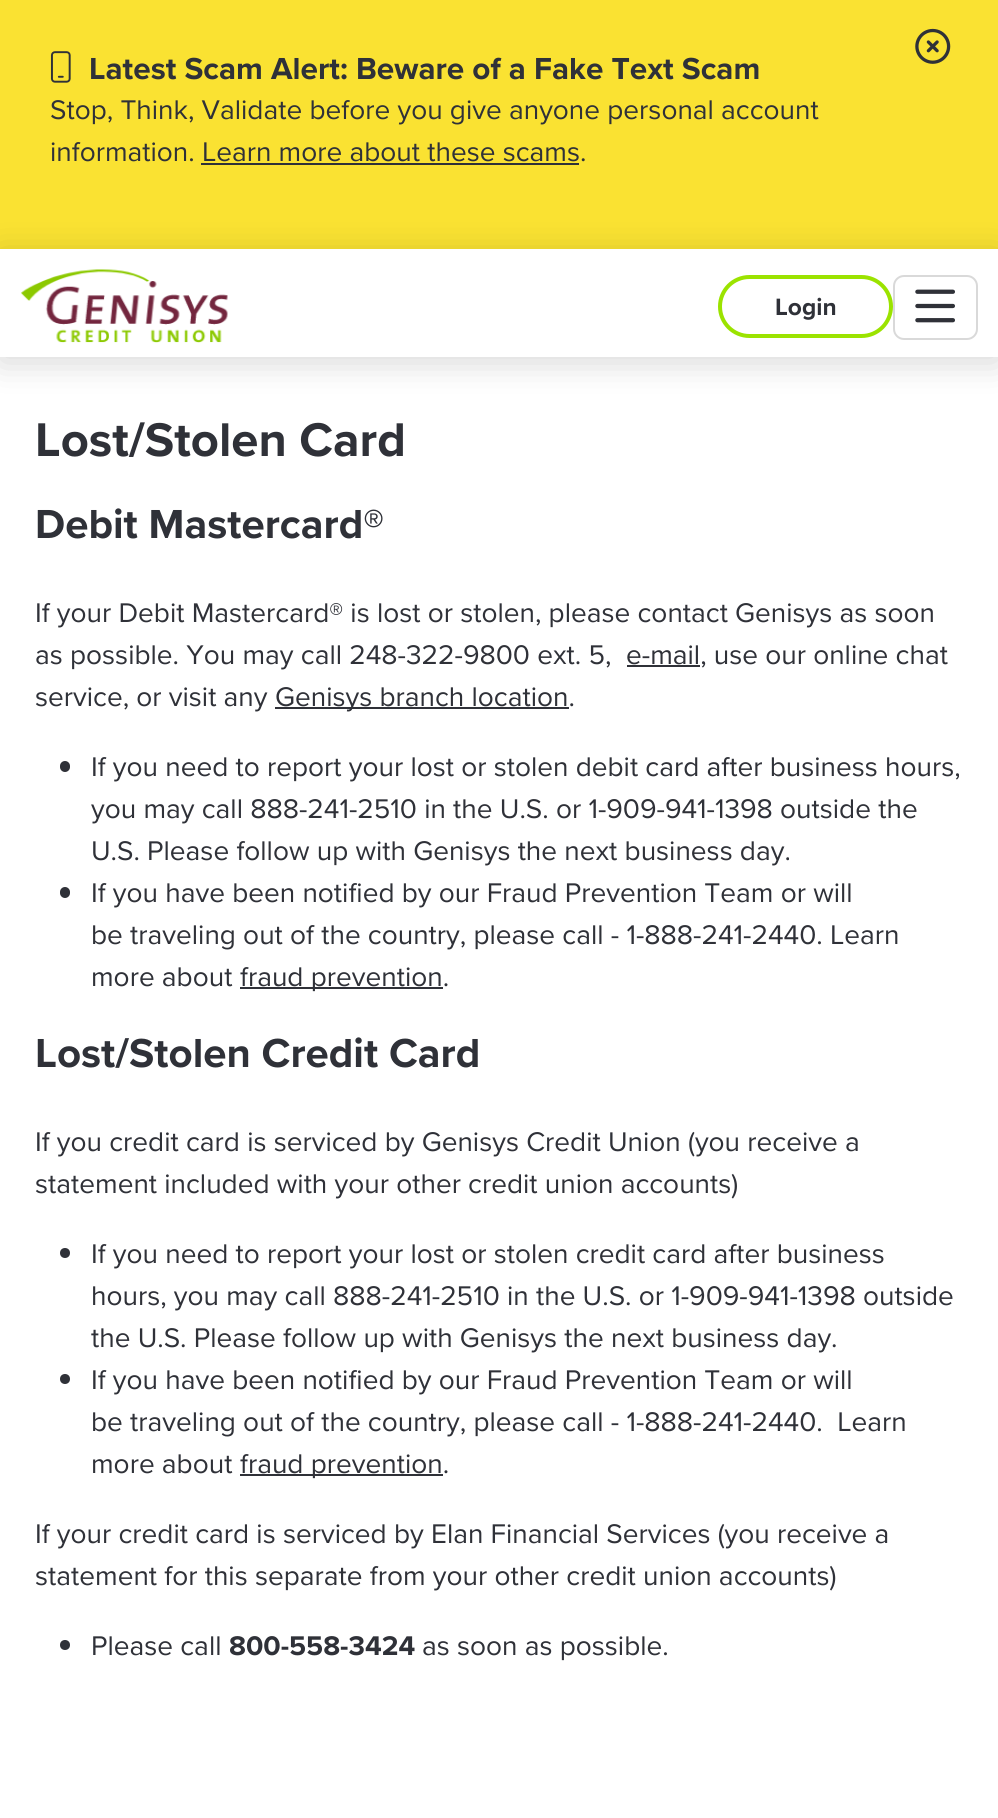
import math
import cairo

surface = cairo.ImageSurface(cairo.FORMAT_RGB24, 998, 1818)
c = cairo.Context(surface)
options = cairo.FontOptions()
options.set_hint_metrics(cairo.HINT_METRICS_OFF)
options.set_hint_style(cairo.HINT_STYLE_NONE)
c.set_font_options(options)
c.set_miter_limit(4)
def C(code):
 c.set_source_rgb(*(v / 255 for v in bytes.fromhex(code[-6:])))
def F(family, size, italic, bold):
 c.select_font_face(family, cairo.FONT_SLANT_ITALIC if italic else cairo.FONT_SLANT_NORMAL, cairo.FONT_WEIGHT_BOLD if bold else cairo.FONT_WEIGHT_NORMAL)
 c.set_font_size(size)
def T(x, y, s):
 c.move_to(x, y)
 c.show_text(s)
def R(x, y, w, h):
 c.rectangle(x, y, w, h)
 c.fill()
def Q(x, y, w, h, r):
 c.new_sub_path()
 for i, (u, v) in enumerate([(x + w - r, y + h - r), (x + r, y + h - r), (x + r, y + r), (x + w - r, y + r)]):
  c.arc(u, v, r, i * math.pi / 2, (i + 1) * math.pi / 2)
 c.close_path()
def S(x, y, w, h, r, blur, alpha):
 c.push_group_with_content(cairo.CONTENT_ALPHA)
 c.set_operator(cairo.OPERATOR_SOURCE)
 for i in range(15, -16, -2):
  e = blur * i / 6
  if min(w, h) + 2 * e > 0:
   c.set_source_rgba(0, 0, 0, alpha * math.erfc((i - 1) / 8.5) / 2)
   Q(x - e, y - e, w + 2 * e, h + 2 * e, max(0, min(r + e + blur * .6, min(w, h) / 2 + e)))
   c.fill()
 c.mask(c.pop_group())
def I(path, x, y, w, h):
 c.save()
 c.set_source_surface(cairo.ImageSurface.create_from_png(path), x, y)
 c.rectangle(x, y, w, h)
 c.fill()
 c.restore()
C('ffffff')
c.paint()
C('fae232')
R(0,0,998,249)
I('1.png',915,28,36,36)
I('2.png',50,51,21,32)
F('Proxima Nova',31.5,0,1)
C('2f3138')
T(89,79,'Latest Scam Alert: Beware of a Fake Text Scam')
F('Proxima Nova',28,0,0)
T(50,119,'Stop, Think, Validate before you give anyone personal account')
T(50,161,'information. Learn more about these scams.')
R(201,163,378,2)
c.save()
c.set_fill_rule(cairo.FILL_RULE_EVEN_ODD)
c.new_path()
c.move_to(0,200)
c.line_to(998,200)
c.line_to(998,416)
c.line_to(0,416)
c.close_path()
c.move_to(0,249)
c.line_to(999,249)
c.line_to(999,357)
c.line_to(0,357)
c.close_path()
c.clip()
C('000000')
S(0,254,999,108,0,17.5,.16)
c.restore()
I('3.png',21,269,207,74)
Q(720,277,171,59,29.5)
C('9be300')
c.set_line_width(4)
c.stroke()
F('Proxima Nova',24.5,0,1)
C('2f3138')
T(775,315,'Login')
Q(894,276,83,63,10)
C('d9d9d9')
c.set_line_width(2)
c.stroke()
I('4.png',915,289,40,34)
F('Proxima Nova',49,0,1)
C('2f3138')
T(35,456,'Lost/Stolen Card')
F('Proxima Nova',42,0,1)
T(35,538,'Debit Mastercard®')
F('Proxima Nova',28,0,0)
T(35,622,'If your Debit Mastercard® is lost or stolen, please contact Genisys as soon')
T(35,664,'as possible. You may call 248-322-9800 ext. 5,')
R(627,665,73,2)
T(626,664,'e-mail, use our online chat')
T(35,706,'service, or visit any')
R(275,707,294,2)
T(275,706,'Genisys branch location.')
Q(60,761,10,11,5)
c.fill()
T(91,776,'If you need to report your lost or stolen debit card after business hours,')
T(91,818,'you may call 888-241-2510 in the U.S. or 1-909-941-1398 outside the')
T(91,860,'U.S. Please follow up with Genisys the next business day.')
Q(60,887,10,11,5)
c.fill()
T(91,902,'If you have been notified by our Fraud Prevention Team or will')
T(91,944,'be traveling out of the country, please call - 1-888-241-2440. Learn')
T(91,986,'more about')
R(240,987,203,2)
T(240,986,'fraud prevention.')
F('Proxima Nova',42,0,1)
T(35,1067,'Lost/Stolen Credit Card')
F('Proxima Nova',28,0,0)
T(35,1151,'If you credit card is serviced by Genisys Credit Union (you receive a')
T(35,1193,'statement included with your other credit union accounts)')
c.new_path()
c.arc(65,1253,5,0,2 * math.pi)
c.fill()
T(91,1263,'If you need to report your lost or stolen credit card after business')
T(91,1305,'hours, you may call 888-241-2510 in the U.S. or 1-909-941-1398 outside')
T(91,1347,'the U.S. Please follow up with Genisys the next business day.')
c.new_path()
c.arc(65,1379,5,0,2 * math.pi)
c.fill()
T(91,1389,'If you have been notified by our Fraud Prevention Team or will')
T(91,1431,'be traveling out of the country, please call - 1-888-241-2440.  Learn')
T(91,1473,'more about')
R(240,1474,203,2)
T(240,1473,'fraud prevention.')
T(35,1543,'If your credit card is serviced by Elan Financial Services (you receive a')
T(35,1585,'statement for this separate from your other credit union accounts)')
c.new_path()
c.arc(65,1645,5,0,2 * math.pi)
c.fill()
T(91,1655,'Please call')
F('Proxima Nova',28,0,1)
T(229,1655,'800-558-3424')
F('Proxima Nova',28,0,0)
T(422,1655,'as soon as possible.')
surface.write_to_png('o.png')
